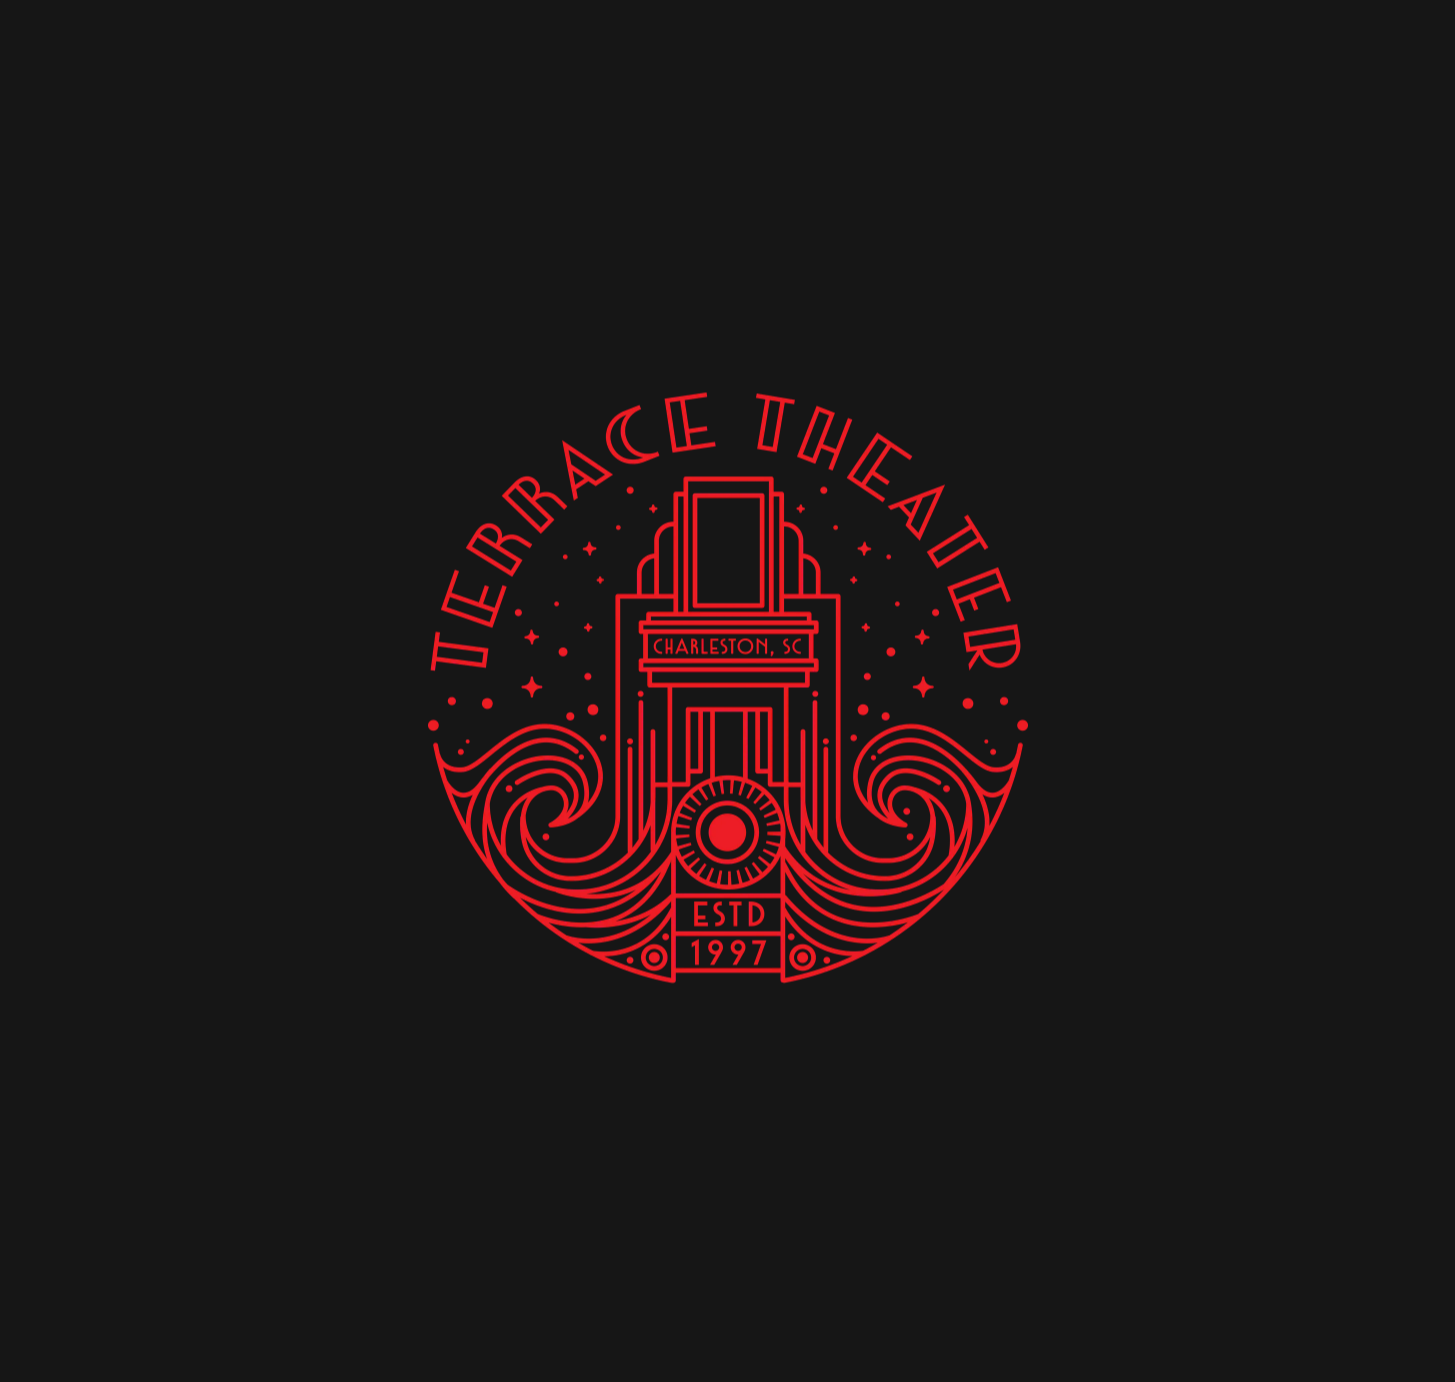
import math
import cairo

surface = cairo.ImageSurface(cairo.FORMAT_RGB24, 1455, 1382)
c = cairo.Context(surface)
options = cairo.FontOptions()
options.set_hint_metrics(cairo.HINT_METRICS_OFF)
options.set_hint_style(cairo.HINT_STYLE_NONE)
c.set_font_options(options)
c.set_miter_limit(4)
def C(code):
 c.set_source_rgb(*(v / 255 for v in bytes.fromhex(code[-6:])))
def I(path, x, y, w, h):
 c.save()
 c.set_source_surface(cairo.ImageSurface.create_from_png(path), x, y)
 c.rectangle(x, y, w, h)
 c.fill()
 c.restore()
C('161616')
c.paint()
I('1.png',428,392,600,592)
surface.write_to_png('o.png')
